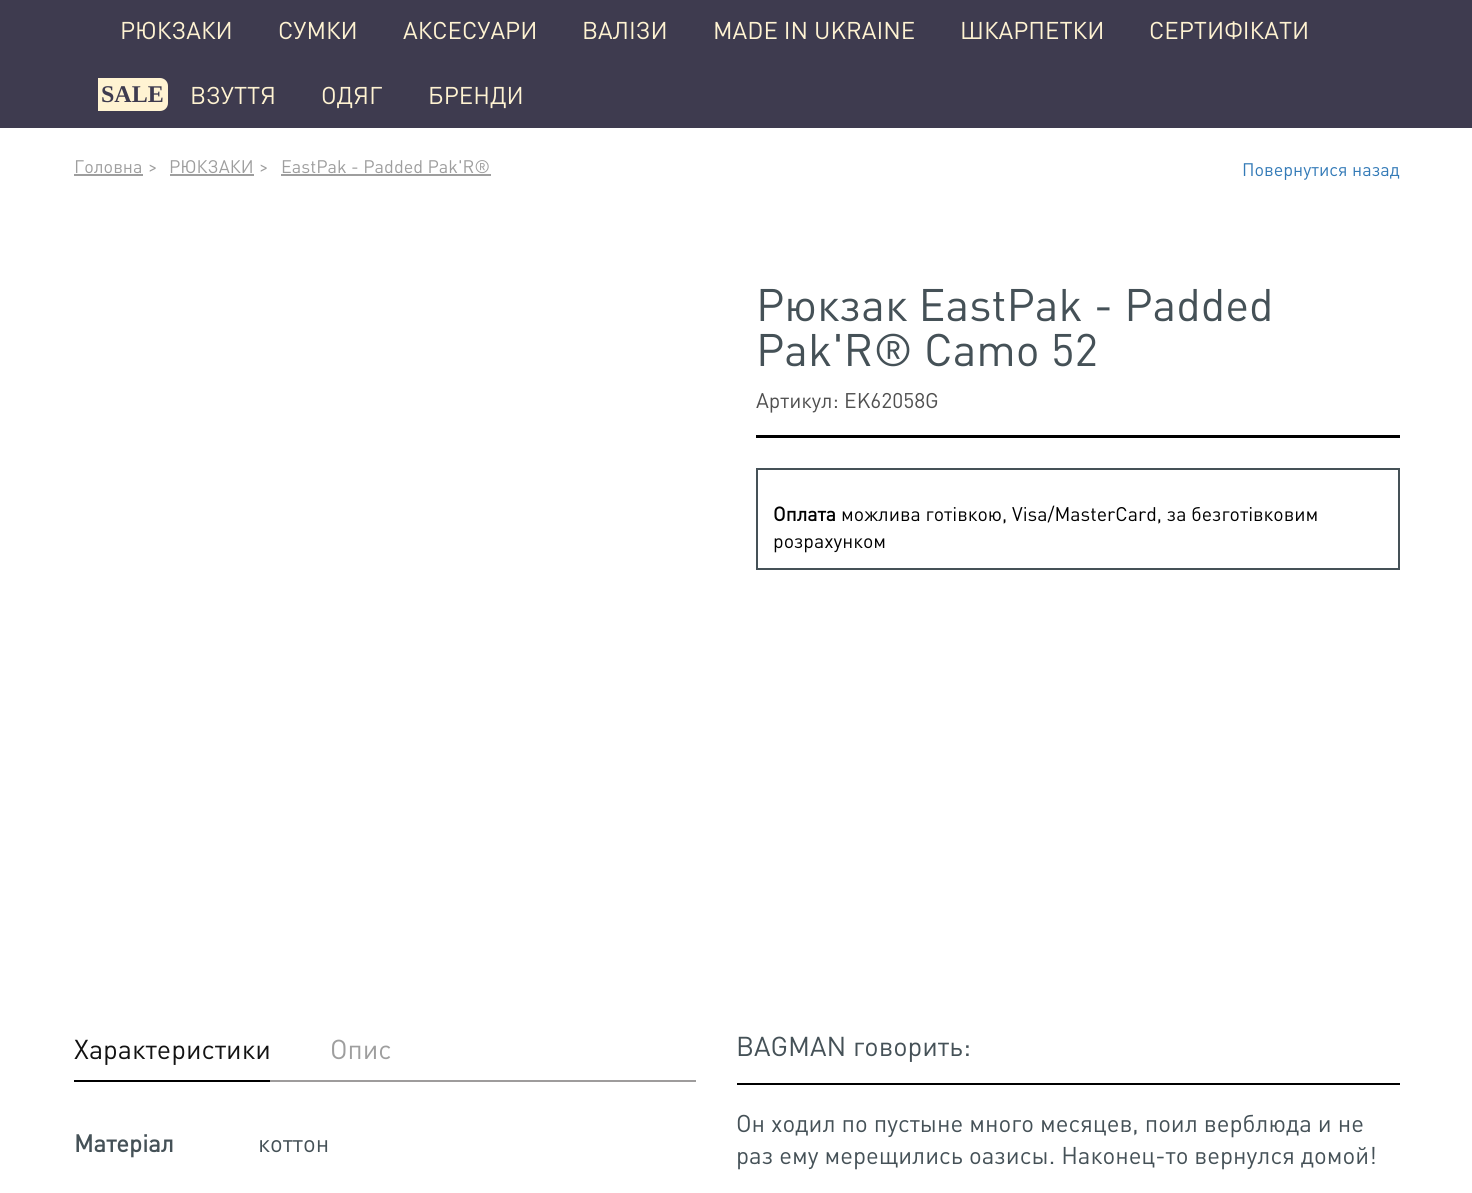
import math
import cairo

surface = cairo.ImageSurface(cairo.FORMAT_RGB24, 1472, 1193)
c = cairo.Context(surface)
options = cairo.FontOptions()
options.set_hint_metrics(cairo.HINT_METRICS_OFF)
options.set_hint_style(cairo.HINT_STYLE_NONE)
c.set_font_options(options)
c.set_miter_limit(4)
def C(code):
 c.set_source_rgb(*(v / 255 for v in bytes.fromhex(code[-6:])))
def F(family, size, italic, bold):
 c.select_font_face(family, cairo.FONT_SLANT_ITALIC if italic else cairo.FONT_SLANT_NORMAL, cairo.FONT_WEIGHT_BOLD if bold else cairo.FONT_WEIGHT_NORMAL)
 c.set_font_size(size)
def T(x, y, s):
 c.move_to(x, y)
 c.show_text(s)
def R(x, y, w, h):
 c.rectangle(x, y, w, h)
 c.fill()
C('ffffff')
c.paint()
C('3e3b4f')
R(0,0,1472,128)
F('DIN',24,0,0)
C('fff3d2')
T(120,39,'РЮКЗАКИ')
T(278,39,'СУМКИ')
T(403,39,'АКСЕСУАРИ')
T(582,39,'ВАЛІЗИ')
T(713,39,'MADE IN UKRAINE')
T(960,39,'ШКАРПЕТКИ')
T(1149,39,'СЕРТИФІКАТИ')
c.new_path()
c.move_to(98,78)
c.line_to(160,78)
c.curve_to(164.5,78,168,81.5,168,86)
c.line_to(168,103)
c.curve_to(168,107.5,164.5,111,160,111)
c.line_to(98,111)
c.close_path()
c.fill()
F('Liberation Serif',24,0,1)
C('3e3b4f')
T(101,102,'SALE')
F('DIN',24,0,0)
C('fff3d2')
T(190,104,'ВЗУТТЯ')
T(321,104,'ОДЯГ')
T(428,104,'БРЕНДИ')
F('DIN',18,0,0)
C('9e9e9e')
T(74,173,'Головна')
R(74,174,69,2)
T(148,173,'>')
T(169,173,'РЮКЗАКИ')
R(170,174,84,2)
T(259,173,'>')
T(281,173,'EastPak - Padded Pak\'R®')
R(281,174,210,2)
C('337ab7')
T(1242,176,'Повернутися назад')
C('000000')
R(756,435,644,3)
F('DIN',45,0,0)
C('455157')
T(756,321,'Рюкзак EastPak - Padded')
T(756,366,'Pak\'R® Camo 52')
F('DIN',21,0,0)
C('505050')
T(756,408,'Артикул: EK62058G')
c.rectangle(757,469,642,100)
C('455157')
c.stroke()
F('DIN',19.5,0,1)
C('000000')
T(773,521,'Оплата')
F('DIN',19.5,0,0)
T(841,521,'можлива готівкою, Visa/MasterCard, за безготівковим')
T(773,548,'розрахунком')
C('9e9c9c')
R(270,1080,426,2)
F('DIN',27,0,0)
C('131313')
T(74,1059,'Характеристики')
C('000000')
R(74,1080,196,2)
C('9e9e9e')
T(330,1059,'Опис')
F('DIN',24,0,1)
C('455157')
T(74,1152,'Матеріал')
F('DIN',24,0,0)
T(258,1152,'коттон')
C('000000')
R(737,1083,663,2)
F('DIN',27,0,0)
C('455157')
T(736,1056,'BAGMAN говорить:')
F('DIN',24,0,0)
T(736,1132,'Он ходил по пустыне много месяцев, поил верблюда и не')
T(736,1164,'раз ему мерещились оазисы. Наконец-то вернулся домой!')
surface.write_to_png('o.png')
